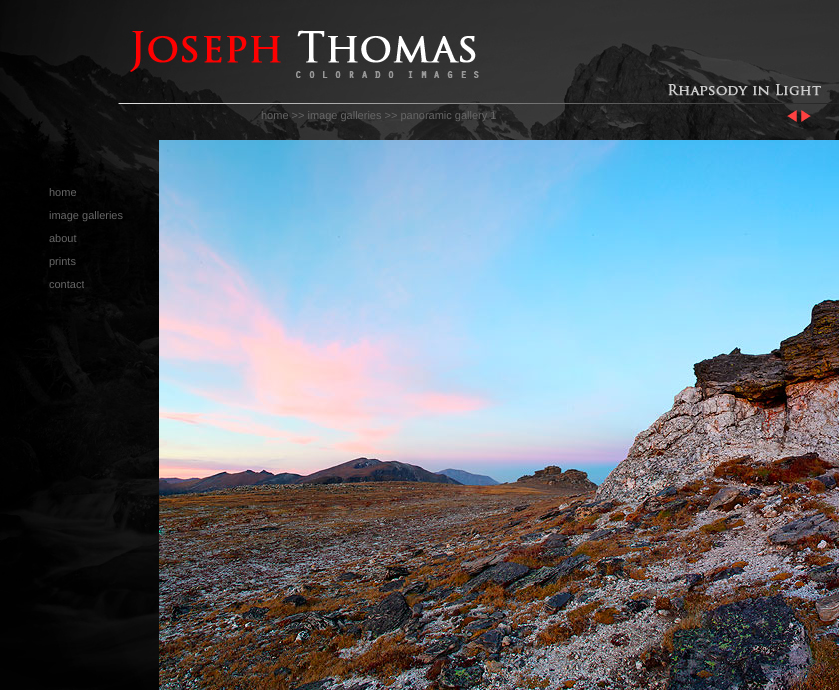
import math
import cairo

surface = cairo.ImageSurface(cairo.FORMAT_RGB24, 839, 690)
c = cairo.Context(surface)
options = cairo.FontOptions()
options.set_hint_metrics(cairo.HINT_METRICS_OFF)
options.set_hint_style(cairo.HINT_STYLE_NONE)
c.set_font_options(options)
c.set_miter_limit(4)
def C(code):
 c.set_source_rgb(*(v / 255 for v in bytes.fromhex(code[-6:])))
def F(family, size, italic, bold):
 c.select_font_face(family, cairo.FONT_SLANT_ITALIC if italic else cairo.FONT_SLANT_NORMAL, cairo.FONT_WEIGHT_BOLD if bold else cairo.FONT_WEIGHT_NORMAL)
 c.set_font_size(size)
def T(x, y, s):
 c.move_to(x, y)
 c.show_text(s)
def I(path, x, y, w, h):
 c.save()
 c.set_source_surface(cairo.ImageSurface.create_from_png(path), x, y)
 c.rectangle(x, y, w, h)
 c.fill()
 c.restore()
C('ffffff')
c.paint()
I('1.png',0,0,839,690)
F('Liberation Sans',11,0,0)
C('666666')
T(261,119,'home >> image galleries >> panoramic gallery 1')
I('2.png',787,110,10,12)
I('3.png',801,110,10,12)
T(49,196,'home')
T(49,219,'image galleries')
T(49,242,'about')
T(49,265,'prints')
T(49,288,'contact')
I('4.png',159,140,680,550)
surface.write_to_png('o.png')
